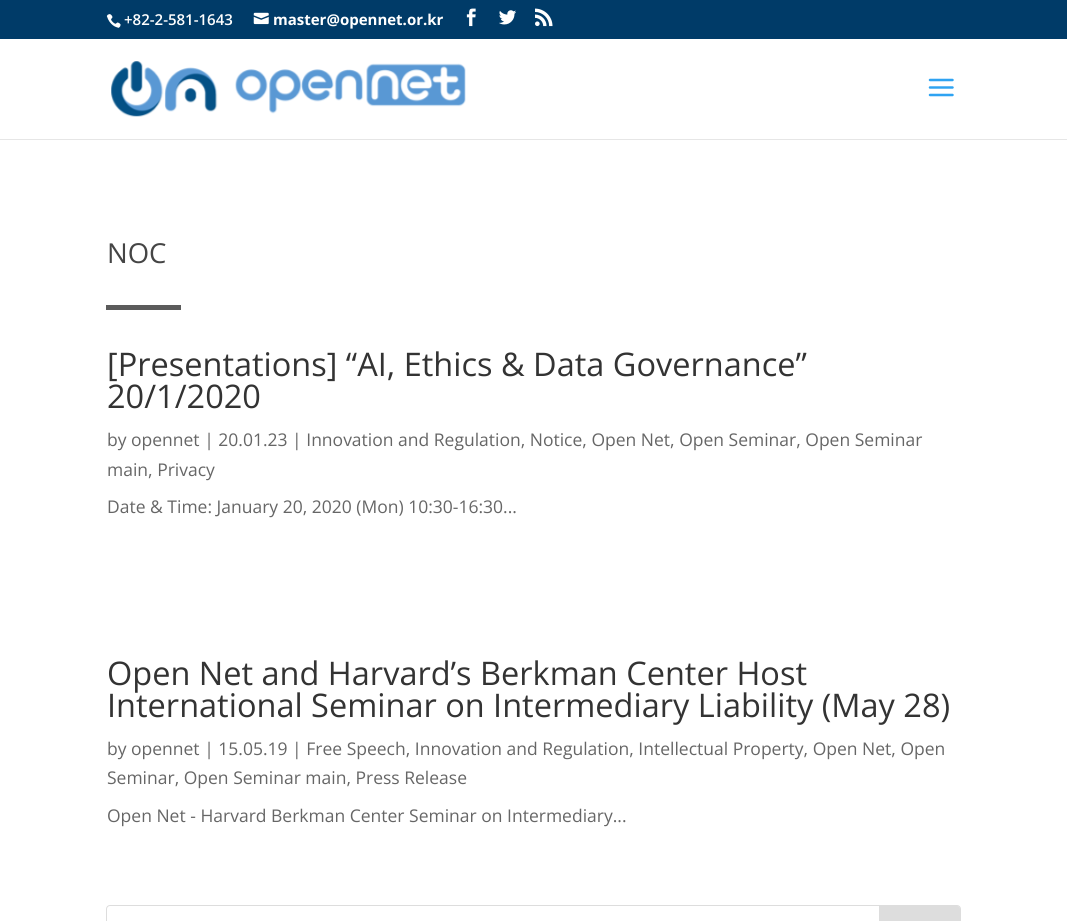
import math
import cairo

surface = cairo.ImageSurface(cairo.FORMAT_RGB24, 1067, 921)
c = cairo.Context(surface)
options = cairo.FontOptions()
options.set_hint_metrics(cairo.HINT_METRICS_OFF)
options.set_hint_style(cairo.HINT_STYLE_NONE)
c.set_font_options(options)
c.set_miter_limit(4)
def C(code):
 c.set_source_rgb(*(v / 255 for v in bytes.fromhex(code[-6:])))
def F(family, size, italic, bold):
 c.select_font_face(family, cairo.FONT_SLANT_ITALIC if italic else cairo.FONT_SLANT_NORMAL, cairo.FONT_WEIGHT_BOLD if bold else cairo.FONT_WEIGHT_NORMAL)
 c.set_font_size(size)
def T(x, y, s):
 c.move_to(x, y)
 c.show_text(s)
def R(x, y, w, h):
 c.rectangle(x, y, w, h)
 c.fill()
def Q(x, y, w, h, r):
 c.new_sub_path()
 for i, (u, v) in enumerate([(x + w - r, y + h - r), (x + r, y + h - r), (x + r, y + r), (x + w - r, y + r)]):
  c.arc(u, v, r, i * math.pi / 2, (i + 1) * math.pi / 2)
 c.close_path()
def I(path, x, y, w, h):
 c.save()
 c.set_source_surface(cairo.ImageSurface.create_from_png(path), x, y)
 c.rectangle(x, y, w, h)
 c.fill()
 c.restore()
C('ffffff')
c.paint()
C('003b68')
R(0,0,1067,39)
I('1.png',106,14,15,14)
F('Open Sans SemiBold',15,0,0)
C('ffffff')
T(124,25,'+82-2-581-1643')
I('2.png',253,12,16,13)
F('Open Sans',15,0,1)
T(273,25,'master@opennet.or.kr')
I('3.png',466,8,10,19)
I('4.png',499,10,17,15)
I('5.png',535,8,18,19)
C('e6e6e6')
c.new_path()
c.move_to(0,139)
c.line_to(0,140)
c.line_to(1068,140)
c.line_to(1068,40)
c.line_to(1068,139)
c.close_path()
c.fill()
I('6.png',111,61,355,56)
I('7.png',928,78,26,19)
F('Open Sans',27.5,0,0)
C('454545')
T(107,263,'NOC')
C('5b5b5b')
R(106,305,75,5)
F('Open Sans',32.5,0,0)
C('333333')
T(107,376,'[Presentations] “AI, Ethics & Data Governance”')
T(107,408,'20/1/2020')
F('Open Sans',17.5,0,0)
C('666666')
T(107,446,'by opennet | 20.01.23 | Innovation and Regulation, Notice, Open Net, Open Seminar, Open Seminar')
T(107,476,'main, Privacy')
T(107,513,'Date & Time: January 20, 2020 (Mon) 10:30-16:30...')
F('Open Sans',32.5,0,0)
C('333333')
T(107,685,'Open Net and Harvard’s Berkman Center Host')
T(107,717,'International Seminar on Intermediary Liability (May 28)')
F('Open Sans',17.5,0,0)
C('666666')
T(107,755,'by opennet | 15.05.19 | Free Speech, Innovation and Regulation, Intellectual Property, Open Net, Open')
T(107,784,'Seminar, Open Seminar main, Press Release')
T(107,822,'Open Net - Harvard Berkman Center Seminar on Intermediary...')
Q(106.5,905.5,854,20,3.5)
C('dddddd')
c.set_line_width(1)
c.stroke()
c.new_path()
c.move_to(879,906)
c.line_to(957.5,906)
c.curve_to(959,906,960,907,960,908.5)
c.line_to(960,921.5)
c.curve_to(960,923,959,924,957.5,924)
c.line_to(879,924)
c.close_path()
c.fill()
surface.write_to_png('o.png')
